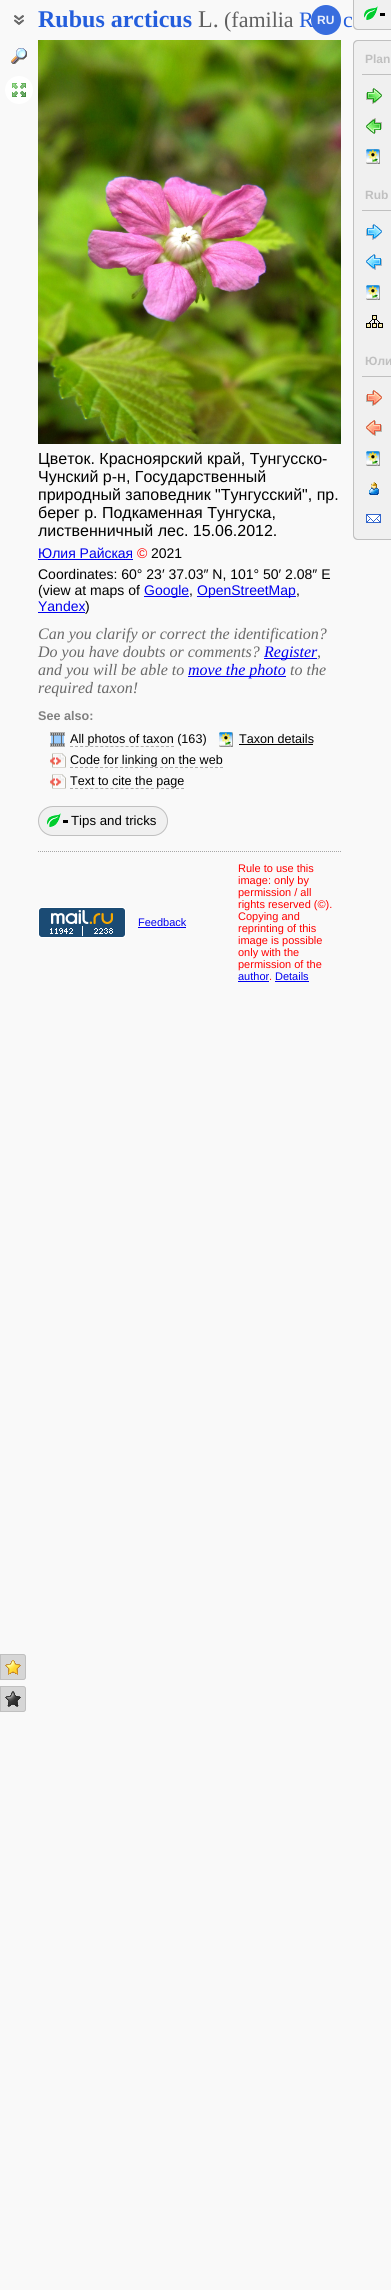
import math
import cairo

surface = cairo.ImageSurface(cairo.FORMAT_RGB24, 391, 2290)
c = cairo.Context(surface)
options = cairo.FontOptions()
options.set_hint_metrics(cairo.HINT_METRICS_OFF)
options.set_hint_style(cairo.HINT_STYLE_NONE)
c.set_font_options(options)
c.set_miter_limit(4)
def C(code):
 c.set_source_rgb(*(v / 255 for v in bytes.fromhex(code[-6:])))
def F(family, size, italic, bold):
 c.select_font_face(family, cairo.FONT_SLANT_ITALIC if italic else cairo.FONT_SLANT_NORMAL, cairo.FONT_WEIGHT_BOLD if bold else cairo.FONT_WEIGHT_NORMAL)
 c.set_font_size(size)
def T(x, y, s):
 c.move_to(x, y)
 c.show_text(s)
def R(x, y, w, h):
 c.rectangle(x, y, w, h)
 c.fill()
def Q(x, y, w, h, r):
 c.new_sub_path()
 for i, (u, v) in enumerate([(x + w - r, y + h - r), (x + r, y + h - r), (x + r, y + r), (x + w - r, y + r)]):
  c.arc(u, v, r, i * math.pi / 2, (i + 1) * math.pi / 2)
 c.close_path()
def I(path, x, y, w, h):
 c.save()
 c.set_source_surface(cairo.ImageSurface.create_from_png(path), x, y)
 c.rectangle(x, y, w, h)
 c.fill()
 c.restore()
C('f9f9f9')
c.paint()
I('1.png',14,15,10,10)
F('Liberation Serif',24,0,1)
C('245edc')
T(38,27,'Rubus arcticus')
F('Liberation Serif',24,0,0)
C('606060')
T(198,27,'L.')
F('Liberation Serif',22,0,0)
T(224,27,'(familia')
C('245edc')
T(299,27,'R')
T(343,27,'c')
c.set_source_rgba(0.141,0.369,0.863,0.9)
c.new_path()
c.arc(326,20,15,0,2 * math.pi)
c.fill()
F('Liberation Sans',12,0,1)
C('ebf0fc')
T(317,24,'RU')
I('2.png',11,48,16,16)
C('ffffff')
c.arc(19,90,14,0,2 * math.pi)
c.fill()
I('3.png',12,83,14,14)
C('d6d6d6')
c.new_path()
c.move_to(0,1654)
c.line_to(23,1654)
c.curve_to(24.5,1654,26,1655.5,26,1657)
c.line_to(26,1677)
c.curve_to(26,1678.5,24.5,1680,23,1680)
c.line_to(0,1680)
c.close_path()
c.fill()
I('4.png',5,1660,16,15)
c.new_path()
c.move_to(.5,1654.5)
c.line_to(23,1654.5)
c.curve_to(24.5,1654.5,25.5,1655.5,25.5,1657)
c.line_to(25.5,1677)
c.curve_to(25.5,1678.5,24.5,1679.5,23,1679.5)
c.line_to(.5,1679.5)
c.close_path()
C('c0c0c0')
c.set_line_width(1)
c.stroke()
C('d6d6d6')
c.new_path()
c.move_to(0,1686)
c.line_to(23,1686)
c.curve_to(24.5,1686,26,1687.5,26,1689)
c.line_to(26,1709)
c.curve_to(26,1710.5,24.5,1712,23,1712)
c.line_to(0,1712)
c.close_path()
c.fill()
I('5.png',5,1691,16,16)
c.new_path()
c.move_to(.5,1686.5)
c.line_to(23,1686.5)
c.curve_to(24.5,1686.5,25.5,1687.5,25.5,1689)
c.line_to(25.5,1709)
c.curve_to(25.5,1710.5,24.5,1711.5,23,1711.5)
c.line_to(.5,1711.5)
c.close_path()
C('c0c0c0')
c.stroke()
C('f0f0f0')
c.new_path()
c.move_to(353,0)
c.line_to(391,0)
c.line_to(391,30)
c.line_to(358,30)
c.curve_to(355,30,353,28,353,25)
c.close_path()
c.fill()
I('6.png',364,6,14,14)
C('c0c0c0')
c.set_fill_rule(cairo.FILL_RULE_EVEN_ODD)
c.new_path()
c.move_to(353,0)
c.line_to(391,0)
c.line_to(391,30)
c.line_to(358,30)
c.curve_to(355,30,353,28,353,25)
c.close_path()
c.move_to(354,0)
c.line_to(391,0)
c.line_to(391,29)
c.line_to(358,29)
c.curve_to(356,29,354,27,354,25)
c.close_path()
c.fill()
C('000000')
R(380,13,5,3)
C('f0f0f0')
c.new_path()
c.move_to(358,40)
c.line_to(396,40)
c.line_to(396,540)
c.line_to(358,540)
c.curve_to(355,540,353,538,353,535)
c.line_to(353,45)
c.curve_to(353,42,355,40,358,40)
c.close_path()
c.fill()
C('c0c0c0')
c.new_path()
c.move_to(358,40)
c.line_to(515,40)
c.line_to(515,540)
c.line_to(358,540)
c.curve_to(355,540,353,538,353,535)
c.line_to(353,45)
c.curve_to(353,42,355,40,358,40)
c.close_path()
c.move_to(358,41)
c.line_to(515,41)
c.line_to(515,539)
c.line_to(358,539)
c.curve_to(356,539,354,537,354,535)
c.line_to(354,45)
c.curve_to(354,43,356,41,358,41)
c.close_path()
c.fill()
R(362,74,29,1)
T(365,63,'Plan')
I('7.png',366,88,16,16)
I('8.png',366,118,16,16)
I('9.png',366,149,14,15)
R(362,210,29,1)
T(365,199,'Rub')
I('10.png',366,224,16,16)
I('11.png',366,254,16,16)
I('9.png',366,285,14,15)
I('12.png',366,315,17,13)
R(362,376,29,1)
T(365,365,'Юли')
I('13.png',366,390,16,16)
I('14.png',366,420,16,16)
I('9.png',366,451,14,15)
I('15.png',369,482,10,13)
I('16.png',366,514,15,9)
I('17.png',38,40,303,404)
F('Liberation Sans',16,0,0)
C('000000')
T(38,464,'Цветок. Красноярский край, Тунгусско-')
T(38,482,'Чунский р-н, Государственный')
T(38,500,'природный заповедник "Тунгусский", пр.')
T(38,518,'берег р. Подкаменная Тунгуска,')
T(38,536,'лиственничный лес. 15.06.2012.')
F('Liberation Sans',14,0,0)
C('0000ee')
T(38,558,'Юлия Райская')
R(38,559,95,1)
C('ff0000')
T(137,558,'©')
C('000000')
T(151,558,'2021')
T(38,579,'Coordinates: 60° 23′ 37.03″ N, 101° 50′ 2.08″ E')
T(38,595,'(view at maps of')
C('0000ee')
R(144,596,45,1)
T(144,595,'Google')
C('000000')
T(189,595,',')
C('0000ee')
R(197,596,99,1)
T(197,595,'OpenStreetMap')
C('000000')
T(296,595,',')
C('0000ee')
T(38,611,'Yandex')
R(38,612,47,1)
C('000000')
T(85,611,')')
F('Liberation Serif',16,1,0)
C('696969')
T(38,639,'Can you clarify or correct the identification?')
T(38,657,'Do you have doubts or comments?')
C('0000ee')
R(264,658,53,1)
T(264,657,'Register')
C('696969')
T(317,657,',')
T(38,675,'and you will be able to')
C('0000ee')
R(188,676,98,1)
T(188,675,'move the photo')
C('696969')
T(290,675,'to the')
T(38,693,'required taxon!')
F('Liberation Sans',12.6,0,1)
C('808080')
T(38,720,'See also:')
I('18.png',50,732,15,15)
F('Liberation Sans',12.6,0,0)
C('000000')
T(70,743,'All photos of taxon (163)')
c.new_path()
c.move_to(70,746.5)
c.line_to(174,746.5)
C('a9a9a9')
c.set_dash([3,2.05])
c.stroke()
I('9.png',219,732,14,15)
C('000000')
T(239,743,'Taxon details')
R(239,744,74,1)
I('19.png',50,753,16,15)
T(70,764,'Code for linking on the web')
c.new_path()
c.move_to(70,767.5)
c.line_to(223,767.5)
C('a9a9a9')
c.set_dash([3,2])
c.stroke()
I('19.png',50,774,16,15)
C('000000')
T(70,785,'Text to cite the page')
c.new_path()
c.move_to(70,788.5)
c.line_to(184,788.5)
C('a9a9a9')
c.set_dash([3,2.05])
c.stroke()
C('f0f0f0')
Q(38,806,130,30,15)
c.fill()
C('000000')
R(63,820,5,3)
Q(38.5,806.5,129,29,14.5)
C('c0c0c0')
c.set_dash([])
c.stroke()
I('6.png',47,813,14,14)
F('Liberation Sans',13.25,0,0)
C('000000')
T(71,825,'Tips and tricks')
c.new_path()
c.move_to(38,851.5)
c.line_to(341,851.5)
C('a6a6a6')
c.set_dash([1,1])
c.stroke()
I('20.png',38,907,88,31)
F('Liberation Sans',11,0,0)
C('0000ee')
T(138,926,'Feedback')
R(138,927,48,1)
C('ff0000')
T(238,872,'Rule to use this')
T(238,884,'image: only by')
T(238,896,'permission / all')
T(238,908,'rights reserved (©).')
T(238,920,'Copying and')
T(238,932,'reprinting of this')
T(238,944,'image is possible')
T(238,956,'only with the')
T(238,968,'permission of the')
C('0000ee')
T(238,980,'author')
C('ff0000')
T(269,980,'.')
C('0000ee')
R(238,981,31,1)
R(275,981,34,1)
T(275,980,'Details')
surface.write_to_png('o.png')
